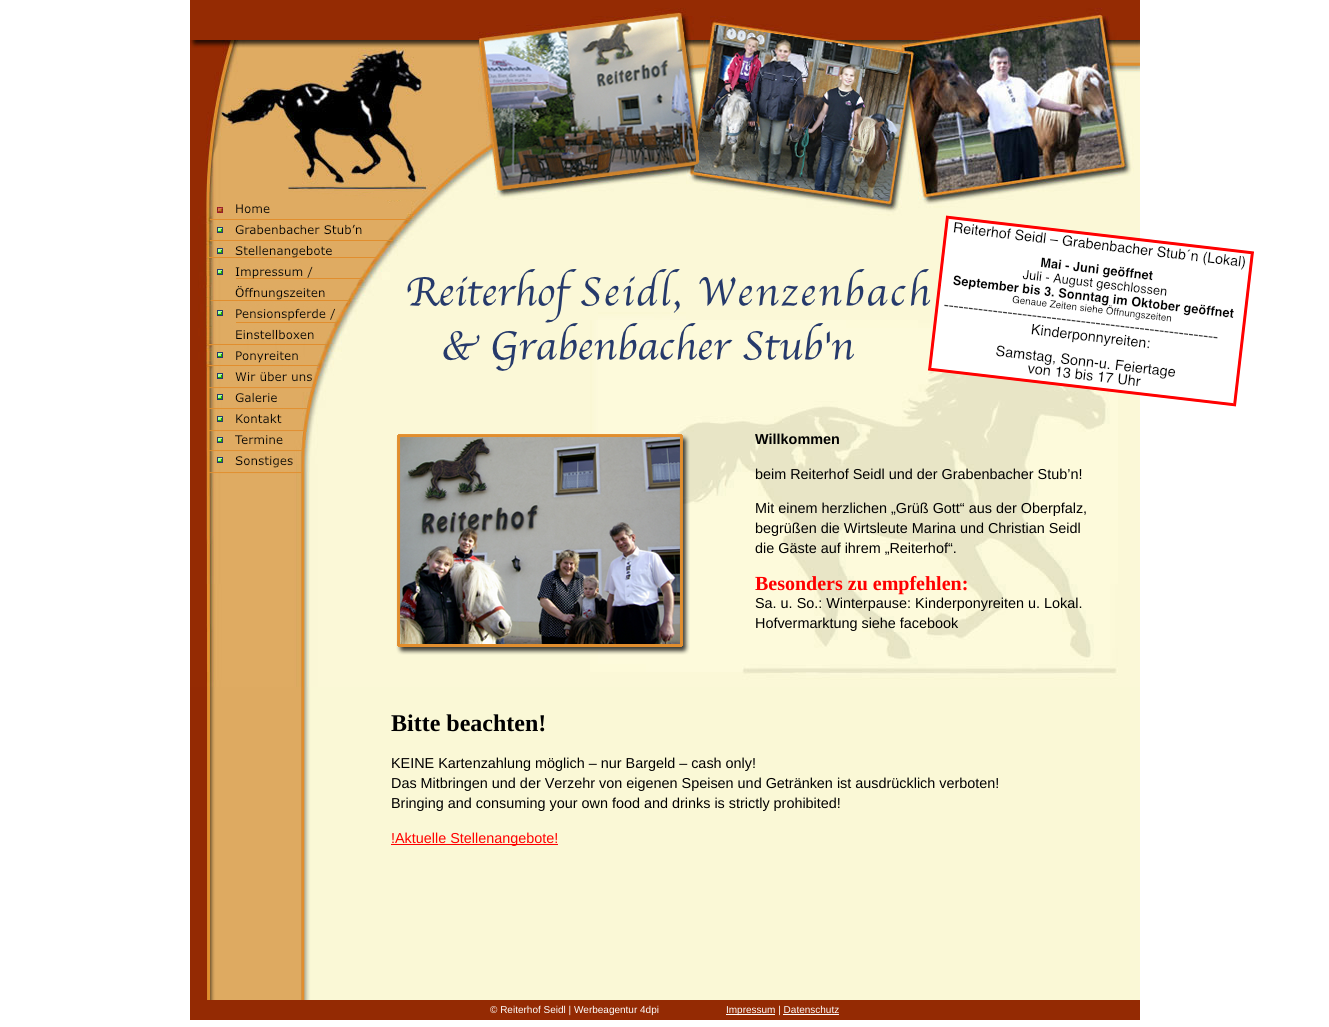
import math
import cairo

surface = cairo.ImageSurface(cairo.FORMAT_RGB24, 1329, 1027)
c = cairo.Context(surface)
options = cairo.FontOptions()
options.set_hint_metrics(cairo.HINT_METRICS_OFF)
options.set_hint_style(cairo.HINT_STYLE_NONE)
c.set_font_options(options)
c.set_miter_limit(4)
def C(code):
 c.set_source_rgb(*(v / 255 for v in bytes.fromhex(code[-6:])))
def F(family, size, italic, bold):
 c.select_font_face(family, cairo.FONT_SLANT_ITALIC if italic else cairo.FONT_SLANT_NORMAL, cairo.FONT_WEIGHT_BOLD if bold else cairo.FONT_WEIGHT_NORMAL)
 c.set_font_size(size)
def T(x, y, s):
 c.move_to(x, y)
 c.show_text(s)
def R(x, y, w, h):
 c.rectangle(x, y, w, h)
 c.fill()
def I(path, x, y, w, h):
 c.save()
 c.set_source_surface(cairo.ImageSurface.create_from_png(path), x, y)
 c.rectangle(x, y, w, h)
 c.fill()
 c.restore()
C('ffffff')
c.paint()
I('1.png',190,687,950,313)
I('2.png',190,0,950,687)
I('3.png',217,207,6,6)
I('5.png',407,269,524,102)
I('4.png',928,215,326,192)
I('6.png',396,434,294,221)
F('Liberation Sans',14.4,0,1)
C('000000')
T(755,444,'Willkommen')
F('Liberation Sans',14.4,0,0)
T(755,479,'beim Reiterhof Seidl und der Grabenbacher Stub’n!')
T(755,513,'Mit einem herzlichen „Grüß Gott“ aus der Oberpfalz,')
T(755,533,'begrüßen die Wirtsleute Marina und Christian Seidl')
T(755,553,'die Gäste auf ihrem „Reiterhof“.')
F('Liberation Serif',20,0,1)
C('ff0000')
T(755,590,'Besonders zu empfehlen:')
F('Liberation Sans',14.4,0,0)
C('000000')
T(755,608,'Sa. u. So.: Winterpause: Kinderponyreiten u. Lokal.')
T(755,628,'Hofvermarktung siehe facebook')
F('Liberation Serif',24,0,1)
T(391,731,'Bitte beachten!')
F('Liberation Sans',14.4,0,0)
T(391,768,'KEINE Kartenzahlung möglich – nur Bargeld – cash only!')
T(391,788,'Das Mitbringen und der Verzehr von eigenen Speisen und Getränken ist ausdrücklich verboten!')
T(391,808,'Bringing and consuming your own food and drinks is strictly prohibited!')
C('ff0000')
R(391,844,167,1)
T(391,843,'!Aktuelle Stellenangebote!')
C('942a03')
R(190,1000,950,20)
F('Liberation Sans',10,0,0)
C('ffffff')
T(490,1013,'© Reiterhof Seidl | Werbeagentur 4dpi')
R(726,1014,49,1)
T(726,1013,'Impressum | Datenschutz')
R(783,1014,56,1)
surface.write_to_png('o.png')
